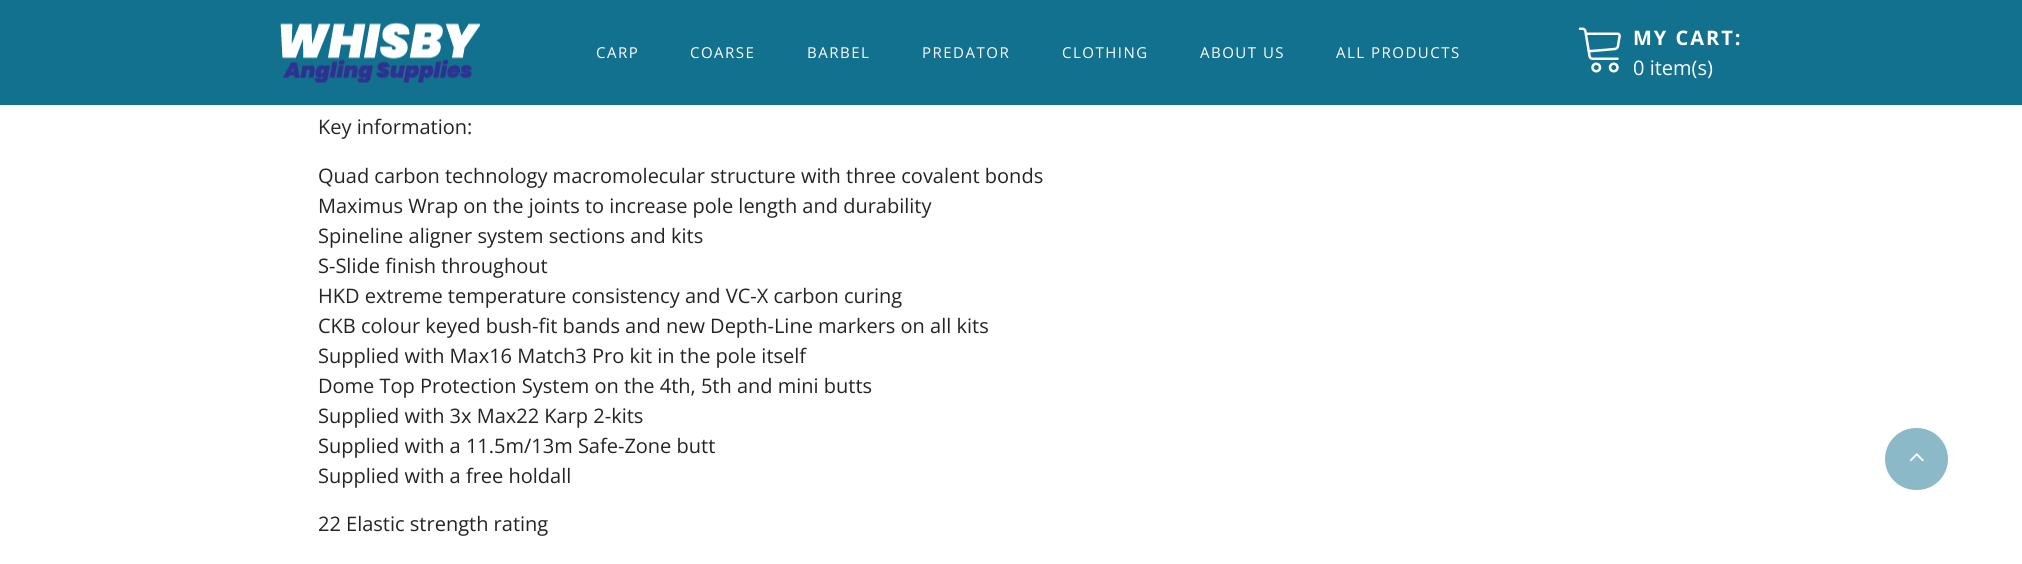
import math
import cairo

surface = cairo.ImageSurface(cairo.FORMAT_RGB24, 2022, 564)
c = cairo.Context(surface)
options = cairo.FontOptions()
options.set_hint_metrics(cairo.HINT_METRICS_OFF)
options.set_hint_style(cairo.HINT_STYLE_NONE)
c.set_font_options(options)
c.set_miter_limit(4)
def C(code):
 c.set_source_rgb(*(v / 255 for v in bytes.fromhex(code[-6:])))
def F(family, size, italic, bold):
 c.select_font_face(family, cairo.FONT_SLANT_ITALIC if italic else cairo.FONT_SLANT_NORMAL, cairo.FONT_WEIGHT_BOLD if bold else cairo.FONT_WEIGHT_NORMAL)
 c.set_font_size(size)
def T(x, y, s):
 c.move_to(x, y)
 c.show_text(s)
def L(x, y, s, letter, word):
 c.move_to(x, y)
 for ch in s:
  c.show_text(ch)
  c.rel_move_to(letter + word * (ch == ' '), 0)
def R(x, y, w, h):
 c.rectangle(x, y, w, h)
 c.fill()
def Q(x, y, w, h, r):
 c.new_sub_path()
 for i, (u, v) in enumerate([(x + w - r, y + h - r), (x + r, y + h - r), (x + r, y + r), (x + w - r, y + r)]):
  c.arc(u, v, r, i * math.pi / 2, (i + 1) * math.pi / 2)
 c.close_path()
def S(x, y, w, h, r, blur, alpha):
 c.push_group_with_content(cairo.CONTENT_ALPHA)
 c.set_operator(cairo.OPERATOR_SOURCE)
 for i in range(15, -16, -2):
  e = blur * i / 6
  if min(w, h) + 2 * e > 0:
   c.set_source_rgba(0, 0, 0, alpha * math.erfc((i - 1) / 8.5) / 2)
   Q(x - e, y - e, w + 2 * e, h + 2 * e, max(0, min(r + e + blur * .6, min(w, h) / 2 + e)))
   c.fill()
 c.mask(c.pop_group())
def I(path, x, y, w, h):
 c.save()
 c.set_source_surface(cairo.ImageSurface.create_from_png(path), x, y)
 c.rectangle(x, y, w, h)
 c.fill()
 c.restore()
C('ffffff')
c.paint()
C('000000')
S(0,0,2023,105,0,3,.05)
C('12718e')
R(0,0,2022,105)
I('1.png',280,22,200,61)
F('Open Sans',15,0,0)
C('ffffff')
L(596,58,'CARP',1.5,0)
L(690,58,'COARSE',1.5,0)
L(807,58,'BARBEL',1.5,0)
L(922,58,'PREDATOR',1.5,0)
L(1062,58,'CLOTHING',1.5,0)
L(1200,58,'ABOUT US',1.5,0)
L(1336,58,'ALL PRODUCTS',1.5,0)
I('2.png',1578,27,43,46)
F('Open Sans',20,0,1)
L(1633,45,'MY CART:',2,0)
F('Open Sans',20,0,0)
T(1633,75,'0 item(s)')
C('242424')
T(318,134,'Key information:')
T(318,183,'Quad carbon technology macromolecular structure with three covalent bonds')
T(318,213,'Maximus Wrap on the joints to increase pole length and durability')
T(318,243,'Spineline aligner system sections and kits')
T(318,273,'S-Slide finish throughout')
T(318,303,'HKD extreme temperature consistency and VC-X carbon curing')
T(318,333,'CKB colour keyed bush-fit bands and new Depth-Line markers on all kits')
T(318,363,'Supplied with Max16 Match3 Pro kit in the pole itself')
T(318,393,'Dome Top Protection System on the 4th, 5th and mini butts')
T(318,423,'Supplied with 3x Max22 Karp 2-kits')
T(318,453,'Supplied with a 11.5m/13m Safe-Zone butt')
T(318,483,'Supplied with a free holdall')
T(318,531,'22 Elastic strength rating')
C('8bb9c8')
Q(1885,428,63,62,31)
c.fill()
I('3.png',1909,453,15,9)
surface.write_to_png('o.png')
